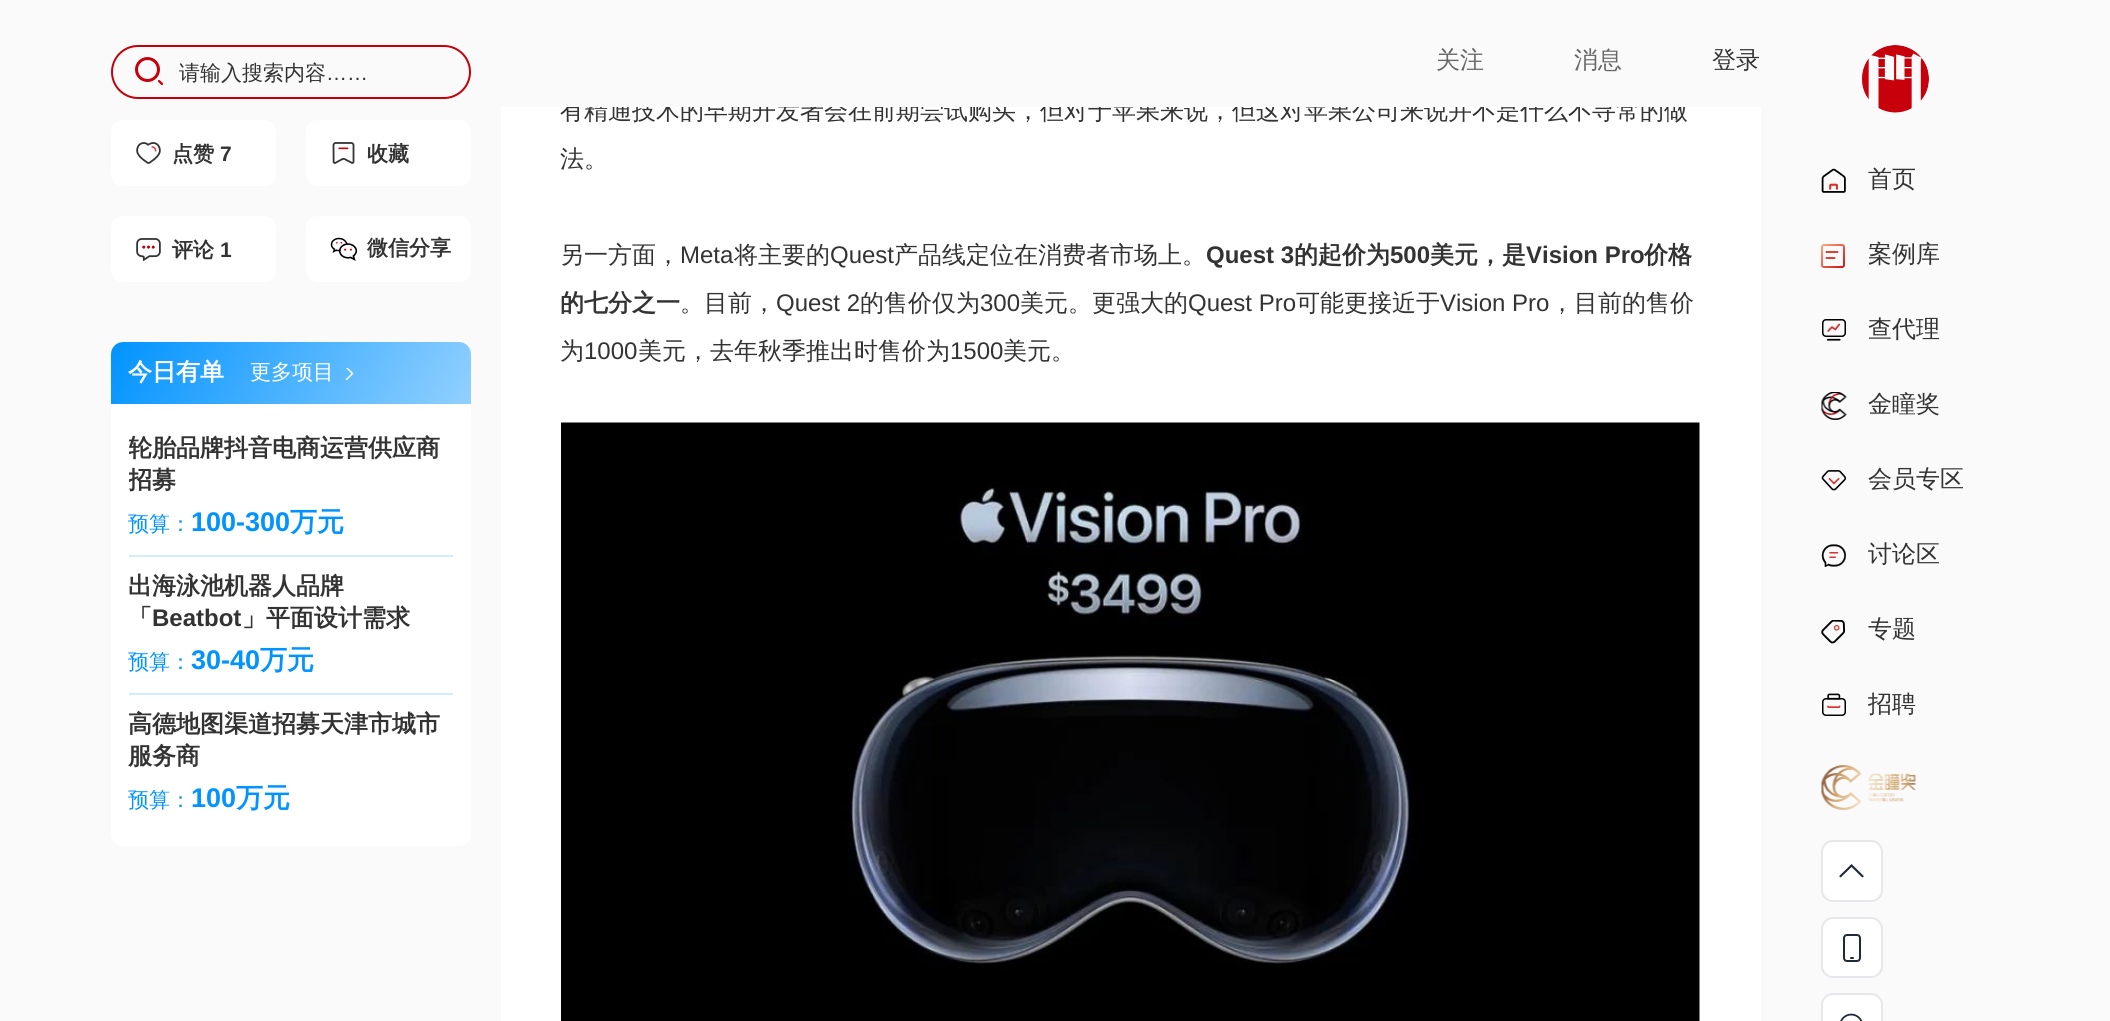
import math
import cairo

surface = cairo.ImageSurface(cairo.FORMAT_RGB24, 2110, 1021)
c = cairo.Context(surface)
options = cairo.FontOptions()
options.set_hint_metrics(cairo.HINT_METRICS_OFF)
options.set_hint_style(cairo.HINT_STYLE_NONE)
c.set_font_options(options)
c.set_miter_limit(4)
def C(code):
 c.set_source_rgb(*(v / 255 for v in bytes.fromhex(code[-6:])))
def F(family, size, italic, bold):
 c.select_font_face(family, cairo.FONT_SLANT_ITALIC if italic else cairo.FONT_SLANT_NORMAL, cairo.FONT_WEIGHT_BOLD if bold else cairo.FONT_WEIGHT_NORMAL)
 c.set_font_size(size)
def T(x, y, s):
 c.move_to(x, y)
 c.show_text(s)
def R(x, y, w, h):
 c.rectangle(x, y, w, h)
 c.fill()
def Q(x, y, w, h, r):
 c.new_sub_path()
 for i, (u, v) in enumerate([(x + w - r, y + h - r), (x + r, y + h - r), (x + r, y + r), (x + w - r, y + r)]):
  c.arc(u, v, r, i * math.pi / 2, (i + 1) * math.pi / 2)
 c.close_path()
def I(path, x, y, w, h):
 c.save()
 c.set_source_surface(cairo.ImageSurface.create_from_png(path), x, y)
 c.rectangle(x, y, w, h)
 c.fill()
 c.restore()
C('fafafa')
c.paint()
C('ffffff')
R(501,107,1260,914)
F('WenQuanYi Zen Hei Medium',24,0,0)
C('333333')
T(560,119,'有精通技术的早期开发者会在前期尝试购买，但对于苹果来说，但这对苹果公司来说并不是什么不寻常的做')
C('fafafa')
R(561,98,1127,9)
Q(112,46,358,52,26)
C('c3000b')
c.stroke()
I('1.png',135,57,29,29)
F('WenQuanYi Zen Hei Medium',21,0,0)
C('333333')
T(179,80,'请输入搜索内容')
F('Liberation Sans',21,0,0)
T(326,80,'……')
F('WenQuanYi Zen Hei Medium',24,0,0)
C('666666')
T(1436,68,'关注')
T(1574,68,'消息')
C('333333')
T(1712,68,'登录')
C('ffffff')
Q(111,120,165,66,12)
c.fill()
I('2.png',136,142,25,22)
F('WenQuanYi Zen Hei',21,0,1)
C('333333')
T(172,161,'点赞')
F('Liberation Sans',21,0,1)
T(220,161,'7')
C('ffffff')
Q(306,120,165,66,12)
c.fill()
I('3.png',332,142,23,22)
F('WenQuanYi Zen Hei',21,0,1)
C('333333')
T(367,161,'收藏')
C('ffffff')
Q(111,216,165,66,12)
c.fill()
I('4.png',136,238,25,24)
C('333333')
T(172,257,'评论')
F('Liberation Sans',21,0,1)
T(220,257,'1')
C('ffffff')
Q(306,216,165,66,12)
c.fill()
I('5.png',330,237,28,24)
F('WenQuanYi Zen Hei',21,0,1)
C('333333')
T(367,255,'微信分享')
C('ffffff')
Q(111,342,360,504,12)
c.fill()
gradient = cairo.LinearGradient(439,458,143,287)
gradient.add_color_stop_rgba(0,0.569,0.816,1,1)
gradient.add_color_stop_rgba(1,0.004,0.576,1,1)
c.set_source(gradient)
c.new_path()
c.move_to(123,342)
c.line_to(459,342)
c.curve_to(465.5,342,471,347.5,471,354)
c.line_to(471,404)
c.line_to(111,404)
c.line_to(111,354)
c.curve_to(111,347.5,116.5,342,123,342)
c.close_path()
c.fill()
F('WenQuanYi Zen Hei',24,0,1)
C('ffffff')
T(128,380,'今日有单')
F('WenQuanYi Zen Hei Medium',21,0,0)
T(250,379,'更多项目')
c.save()
c.rectangle(345,368,9,12)
c.clip()
c.new_path()
c.move_to(346.5,367.5)
c.line_to(352.5,373.5)
c.line_to(346.5,379.5)
c.set_line_width(1.5)
c.set_line_cap(cairo.LINE_CAP_ROUND)
c.stroke()
c.restore()
C('d1ebff')
R(129,555,324,2)
c.save()
c.rectangle(129,434,324,63)
c.clip()
F('WenQuanYi Zen Hei',24,0,1)
C('333333')
T(128,456,'轮胎品牌抖音电商运营供应商')
T(128,488,'招募')
c.restore()
C('0193ff')
T(128,531,'预算：')
F('Liberation Sans',27,0,1)
T(191,531,'100-300')
F('WenQuanYi Zen Hei',27,0,1)
T(290,531,'万元')
C('d1ebff')
R(129,693,324,2)
F('WenQuanYi Zen Hei',24,0,1)
C('333333')
T(128,594,'出海泳池机器人品牌')
T(128,626,'「')
F('Liberation Sans',24,0,1)
T(152,626,'Beatbot')
F('WenQuanYi Zen Hei',24,0,1)
T(242,626,'」平面设计需求')
F('WenQuanYi Zen Hei Medium',21,0,0)
C('0193ff')
T(128,669,'预算：')
F('Liberation Sans',27,0,1)
T(191,669,'30-40')
F('WenQuanYi Zen Hei',27,0,1)
T(260,669,'万元')
F('WenQuanYi Zen Hei',24,0,1)
C('333333')
T(128,732,'高德地图渠道招募天津市城市')
T(128,764,'服务商')
F('WenQuanYi Zen Hei Medium',21,0,0)
C('0193ff')
T(128,807,'预算：')
F('Liberation Sans',27,0,1)
T(191,807,'100')
F('WenQuanYi Zen Hei',27,0,1)
T(236,807,'万元')
F('WenQuanYi Zen Hei Medium',24,0,0)
C('333333')
T(560,167,'法。')
T(560,263,'另一方面，')
F('Liberation Sans',24,0,0)
T(680,263,'Meta')
F('WenQuanYi Zen Hei Medium',24,0,0)
T(734,263,'将主要的')
F('Liberation Sans',24,0,0)
T(830,263,'Quest')
F('WenQuanYi Zen Hei Medium',24,0,0)
T(894,263,'产品线定位在消费者市场上。')
F('Liberation Sans',24,0,1)
T(1206,263,'Quest 3')
F('WenQuanYi Zen Hei',24,0,1)
T(1294,263,'的起价为')
F('Liberation Sans',24,0,1)
T(1390,263,'500')
F('WenQuanYi Zen Hei',24,0,1)
T(1430,263,'美元，是')
F('Liberation Sans',24,0,1)
T(1526,263,'Vision Pro')
F('WenQuanYi Zen Hei',24,0,1)
T(1644,263,'价格')
T(560,311,'的七分之一')
F('WenQuanYi Zen Hei Medium',24,0,0)
T(680,311,'。目前，')
F('Liberation Sans',24,0,0)
T(776,311,'Quest 2')
F('WenQuanYi Zen Hei Medium',24,0,0)
T(860,311,'的售价仅为')
F('Liberation Sans',24,0,0)
T(980,311,'300')
F('WenQuanYi Zen Hei Medium',24,0,0)
T(1020,311,'美元。更强大的')
F('Liberation Sans',24,0,0)
T(1188,311,'Quest Pro')
F('WenQuanYi Zen Hei Medium',24,0,0)
T(1296,311,'可能更接近于')
F('Liberation Sans',24,0,0)
T(1440,311,'Vision Pro')
F('WenQuanYi Zen Hei Medium',24,0,0)
T(1550,311,'，目前的售价')
T(560,359,'为')
F('Liberation Sans',24,0,0)
T(584,359,'1000')
F('WenQuanYi Zen Hei Medium',24,0,0)
T(638,359,'美元，去年秋季推出时售价为')
F('Liberation Sans',24,0,0)
T(950,359,'1500')
F('WenQuanYi Zen Hei Medium',24,0,0)
T(1003,359,'美元。')
I('6.png',561,422,1139,599)
I('7.png',1862,45,67,68)
I('8.png',1821,168,25,25)
T(1868,187,'首页')
Q(1822,245,22,22,2)
gradient = cairo.LinearGradient(1822,245,1844,267)
gradient.add_color_stop_rgba(0,0.996,0.651,0.498,1)
gradient.add_color_stop_rgba(1,0.804,0.082,0.094,1)
c.set_source(gradient)
c.stroke()
c.new_path()
c.move_to(1826.5,252)
c.line_to(1837.5,252)
c.move_to(1826.5,258)
c.line_to(1834.5,258)
C('d7322d')
c.set_line_width(1.9)
c.set_line_cap(cairo.LINE_CAP_ROUND)
c.stroke()
C('333333')
T(1868,262,'案例库')
I('9.png',1822,319,24,22)
T(1868,337,'查代理')
I('10.png',1821,392,26,28)
T(1868,412,'金瞳奖')
I('11.png',1821,470,26,21)
T(1868,487,'会员专区')
I('12.png',1821,544,25,23)
T(1868,562,'讨论区')
I('13.png',1821,620,25,24)
T(1868,637,'专题')
I('14.png',1822,693,24,23)
T(1868,712,'招聘')
I('15.png',1821,765,95,45)
C('ffffff')
Q(1822,841,60,60,11)
c.fill_preserve()
C('e5e7eb')
c.set_line_width(2)
c.set_line_cap(cairo.LINE_CAP_BUTT)
c.stroke()
I('16.png',1839,864,25,14)
C('ffffff')
Q(1822,918,60,59,11)
c.fill_preserve()
C('e5e7eb')
c.stroke()
Q(1844,935,16,26,3)
C('1f2937')
c.stroke()
Q(1850,957,4,2,1)
c.fill()
C('ffffff')
Q(1822,994,60,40,11)
c.fill_preserve()
C('e5e7eb')
c.stroke()
I('17.png',1840,1013,23,8)
surface.write_to_png('o.png')
